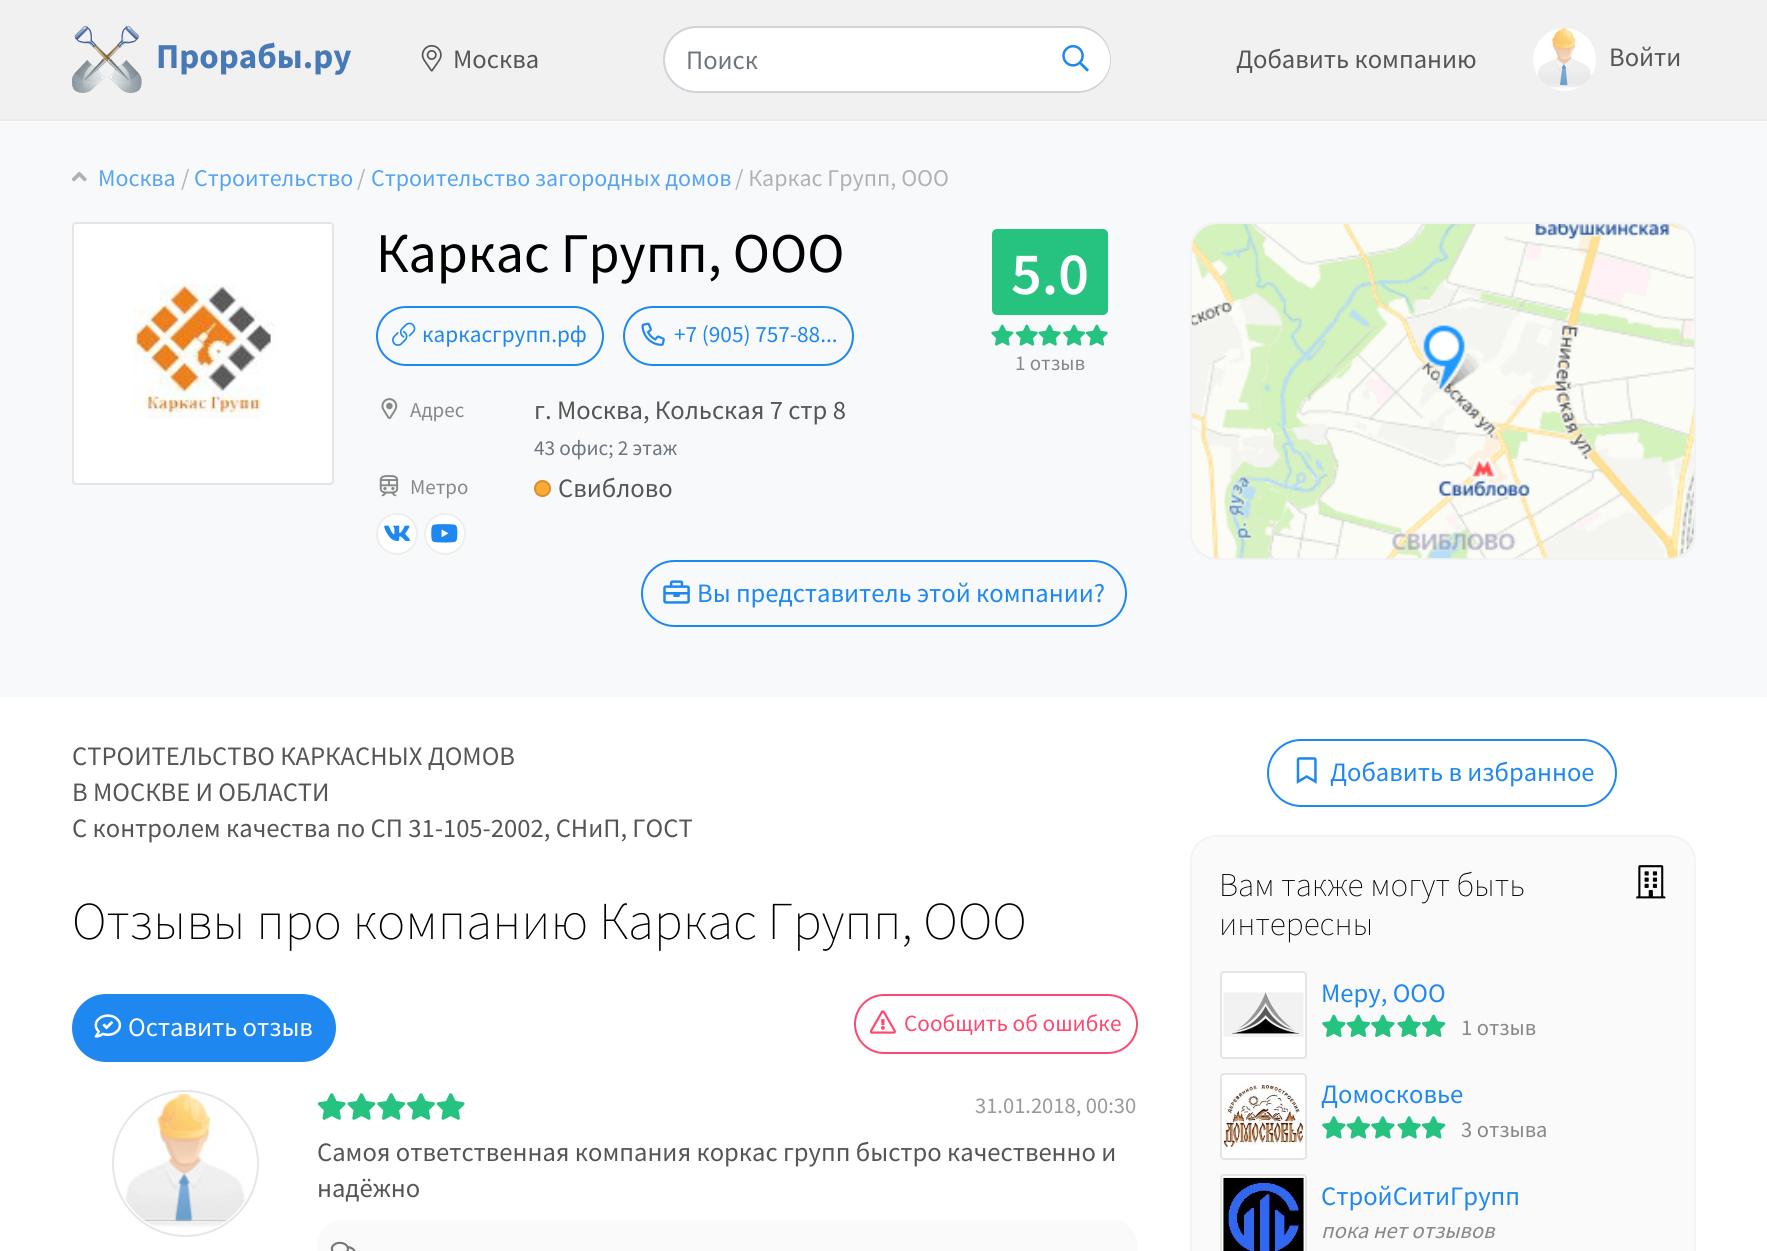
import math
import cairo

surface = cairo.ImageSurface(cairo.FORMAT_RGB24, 1767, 1251)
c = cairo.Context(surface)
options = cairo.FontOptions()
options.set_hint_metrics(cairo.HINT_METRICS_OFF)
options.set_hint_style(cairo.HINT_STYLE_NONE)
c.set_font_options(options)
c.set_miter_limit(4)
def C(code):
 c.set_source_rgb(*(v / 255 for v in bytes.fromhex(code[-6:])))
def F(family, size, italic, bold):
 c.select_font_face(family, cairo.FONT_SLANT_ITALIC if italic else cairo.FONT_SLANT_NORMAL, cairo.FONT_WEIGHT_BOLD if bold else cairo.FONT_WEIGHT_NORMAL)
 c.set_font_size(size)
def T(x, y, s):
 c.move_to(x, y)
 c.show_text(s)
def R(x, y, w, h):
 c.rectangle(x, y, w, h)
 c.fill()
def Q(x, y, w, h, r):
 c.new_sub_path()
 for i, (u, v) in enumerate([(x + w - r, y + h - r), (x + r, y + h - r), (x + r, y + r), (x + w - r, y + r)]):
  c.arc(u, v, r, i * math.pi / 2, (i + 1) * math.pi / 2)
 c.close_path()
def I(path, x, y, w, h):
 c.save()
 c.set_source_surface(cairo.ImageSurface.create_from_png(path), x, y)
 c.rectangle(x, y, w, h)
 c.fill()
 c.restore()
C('ffffff')
c.paint()
C('f1f1f1')
R(0,0,1767,119)
C('ebebeb')
R(0,119,1767,2)
I('1.png',72,25,70,68)
F('Source Sans Pro',35,0,1)
C('4779b6')
T(156,68,'Прорабы.ру')
I('2.png',421,45,21,27)
F('Source Sans Pro',26.6,0,0)
C('555555')
T(453,68,'Москва')
C('ffffff')
c.new_path()
c.move_to(696.5,28)
c.line_to(1043,28)
c.line_to(1043,91)
c.line_to(696.5,91)
c.curve_to(679,91,665,77,665,59.5)
c.curve_to(665,42,679,28,696.5,28)
c.close_path()
c.fill()
C('ced4da')
c.set_fill_rule(cairo.FILL_RULE_EVEN_ODD)
c.new_path()
c.move_to(696,26)
c.line_to(1043,26)
c.line_to(1043,93)
c.line_to(696,93)
c.curve_to(678,93,663,78,663,60)
c.curve_to(663,41,678,26,696,26)
c.close_path()
c.move_to(696,28)
c.line_to(1043,28)
c.line_to(1043,91)
c.line_to(696,91)
c.curve_to(679,91,665,77,665,60)
c.curve_to(665,42,679,28,696,28)
c.close_path()
c.fill()
C('6c757d')
T(686,69,'Поиск')
C('ffffff')
c.new_path()
c.move_to(1041,26)
c.line_to(1077.5,26)
c.curve_to(1096,26,1111,41,1111,59.5)
c.curve_to(1111,78,1096,93,1077.5,93)
c.line_to(1041,93)
c.close_path()
c.fill()
C('ced4da')
c.new_path()
c.move_to(1041,26)
c.line_to(1078,26)
c.curve_to(1096,26,1111,41,1111,60)
c.curve_to(1111,78,1096,93,1078,93)
c.line_to(1041,93)
c.close_path()
c.move_to(1041,28)
c.line_to(1078,28)
c.curve_to(1095,28,1110,42,1110,60)
c.curve_to(1110,77,1095,91,1078,91)
c.line_to(1041,91)
c.close_path()
c.fill()
I('3.png',1062,45,27,27)
C('555555')
T(1236,68,'Добавить компанию')
I('4.png',1533,28,63,63)
T(1609,66,'Войти')
C('f8f9fa')
R(0,121,1767,576)
I('5.png',71,171,16,11)
F('Source Sans Pro',24,0,0)
C('55a4f3')
T(98,186,'Москва')
C('b1b1b1')
T(181,186,'/')
C('55a4f3')
T(194,186,'Строительство')
C('b1b1b1')
T(357,186,'/')
C('55a4f3')
T(371,186,'Строительство загородных домов')
C('b1b1b1')
T(735,186,'/ Каркас Групп, ООО')
C('ffffff')
Q(73,223,260,261,3)
c.fill_preserve()
C('e5e5e5')
c.stroke()
I('6.png',133,283,142,136)
F('Source Sans Pro',56,0,0)
C('000000')
T(376,272,'Каркас Групп, ООО')
Q(377,307,226,58,29)
C('1e87f0')
c.stroke()
I('7.png',392,322,24,24)
F('Source Sans Pro',23.25,0,0)
T(422,342,'каркасгрупп.рф')
Q(624,307,229,58,29)
c.stroke()
I('8.png',641,322,24,24)
T(674,342,'+7 (905) 757-88...')
I('9.png',381,398,17,22)
F('Source Sans Pro',21,0,0)
C('888888')
T(410,417,'Адрес')
F('Source Sans Pro',26.6,0,0)
C('555555')
T(534,419,'г. Москва, Кольская 7 стр 8')
F('Source Sans Pro',21.25,0,0)
C('6c757d')
T(534,455,'43 офис; 2 этаж')
I('10.png',379,475,20,22)
F('Source Sans Pro',21,0,0)
C('888888')
T(410,494,'Метро')
C('fbaa33')
c.new_path()
c.arc(542.5,488.5,8.5,0,2 * math.pi)
c.fill()
c.arc(542.5,488.5,7.5,0,2 * math.pi)
c.set_source_rgba(0,0,0,0.15)
c.stroke()
F('Source Sans Pro',26.6,0,0)
C('555555')
T(558,497,'Свиблово')
C('ffffff')
c.new_path()
c.arc(397,534,20,0,2 * math.pi)
c.fill_preserve()
C('eeeeee')
c.stroke()
I('11.png',384,525,26,16)
C('ffffff')
c.arc(445,534,20,0,2 * math.pi)
c.fill_preserve()
C('eeeeee')
c.stroke()
I('12.png',431,524,27,19)
C('26c280')
Q(992,229,116,86,5)
c.fill()
F('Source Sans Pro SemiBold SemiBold',60,0,0)
C('ffffff')
T(1011,294,'5.0')
I('13.png',991,324,23,22)
I('14.png',1015,324,23,22)
I('15.png',1038,324,23,22)
I('16.png',1063,324,22,22)
I('14.png',1085,324,23,22)
F('Source Sans Pro',21,0,0)
C('888888')
T(1015,370,'1 отзыв')
C('f2f2f4')
Q(1190,222,506,338,26)
c.fill()
I('17.png',1191,224,503,335)
Q(642,561,484,65,32.5)
C('1e87f0')
c.stroke()
I('18.png',663,580,27,24)
F('Source Sans Pro',26.6,0,0)
T(697,602,'Вы представитель этой компании?')
C('555555')
T(72,765,'СТРОИТЕЛЬСТВО КАРКАСНЫХ ДОМОВ')
T(72,801,'В МОСКВЕ И ОБЛАСТИ')
T(72,837,'С контролем качества по СП 31-105-2002, СНиП, ГОСТ')
F('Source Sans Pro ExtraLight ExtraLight',53.25,0,0)
C('000000')
T(72,939,'Отзывы про компанию Каркас Групп, ООО')
C('1e87f0')
Q(73,995,262,66,33)
c.fill_preserve()
c.stroke()
I('19.png',94,1014,28,24)
F('Source Sans Pro',26.6,0,0)
C('ffffff')
T(128,1036,'Оставить отзыв')
Q(855,995,282,58,29)
C('ff4870')
c.stroke()
I('20.png',869,1010,27,24)
F('Source Sans Pro',23.25,0,0)
T(904,1031,'Сообщить об ошибке')
c.new_path()
c.arc(185.5,1163.5,72.5,0,2 * math.pi)
C('e6e6e6')
c.stroke()
I('21.png',125,1093,121,135)
I('22.png',317,1093,29,27)
I('23.png',347,1093,29,27)
I('24.png',377,1093,29,27)
I('25.png',407,1093,28,27)
I('22.png',436,1093,29,27)
F('Source Sans Pro',22.5,0,0)
C('999999')
T(975,1113,'31.01.2018, 00:30')
F('Source Sans Pro',26.6,0,0)
C('555555')
T(317,1161,'Самоя ответственная компания коркас групп быстро качественно и')
T(317,1197,'надёжно')
C('fafafa')
Q(317,1220,821,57,26)
c.fill()
I('26.png',330,1241,26,10)
Q(1268,740,348,66,33)
C('1e87f0')
c.stroke()
I('27.png',1296,757,21,27)
T(1330,781,'Добавить в избранное')
C('fafafa')
Q(1191,836,504,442,25)
c.fill_preserve()
C('f4f4f4')
c.stroke()
F('Source Sans Pro ExtraLight ExtraLight',33.25,0,0)
C('000000')
T(1219,896,'Вам также могут быть')
I('28.png',1636,865,30,34)
T(1219,935,'интересны')
C('ffffff')
Q(1221,972,85,86,3)
c.fill_preserve()
C('e5e5e5')
c.stroke()
I('29.png',1223,992,81,45)
F('Source Sans Pro',26.6,0,0)
C('1e87f0')
T(1321,1002,'Меру, ООО')
I('30.png',1322,1014,24,23)
I('31.png',1346,1014,24,23)
I('30.png',1371,1014,24,23)
I('32.png',1397,1014,24,23)
I('33.png',1421,1014,25,23)
F('Source Sans Pro',22.5,0,0)
C('888888')
T(1461,1035,'1 отзыв')
C('ffffff')
Q(1221,1074,85,85,3)
c.fill_preserve()
C('e5e5e5')
c.stroke()
I('34.png',1223,1085,81,68)
F('Source Sans Pro',26.6,0,0)
C('1e87f0')
T(1321,1103,'Домосковье')
I('35.png',1322,1116,24,23)
I('36.png',1346,1116,24,23)
I('35.png',1371,1116,24,23)
I('37.png',1397,1116,24,23)
I('38.png',1421,1116,25,23)
F('Source Sans Pro',22.5,0,0)
C('888888')
T(1461,1137,'3 отзыва')
C('ffffff')
Q(1221,1175,85,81,3)
c.fill_preserve()
C('e5e5e5')
c.stroke()
I('39.png',1223,1177,81,74)
F('Source Sans Pro',26.6,0,0)
C('1e87f0')
T(1321,1205,'СтройСитиГрупп')
F('Source Sans Pro',22.5,1,0)
C('888888')
T(1321,1238,'пока нет отзывов')
surface.write_to_png('o.png')
